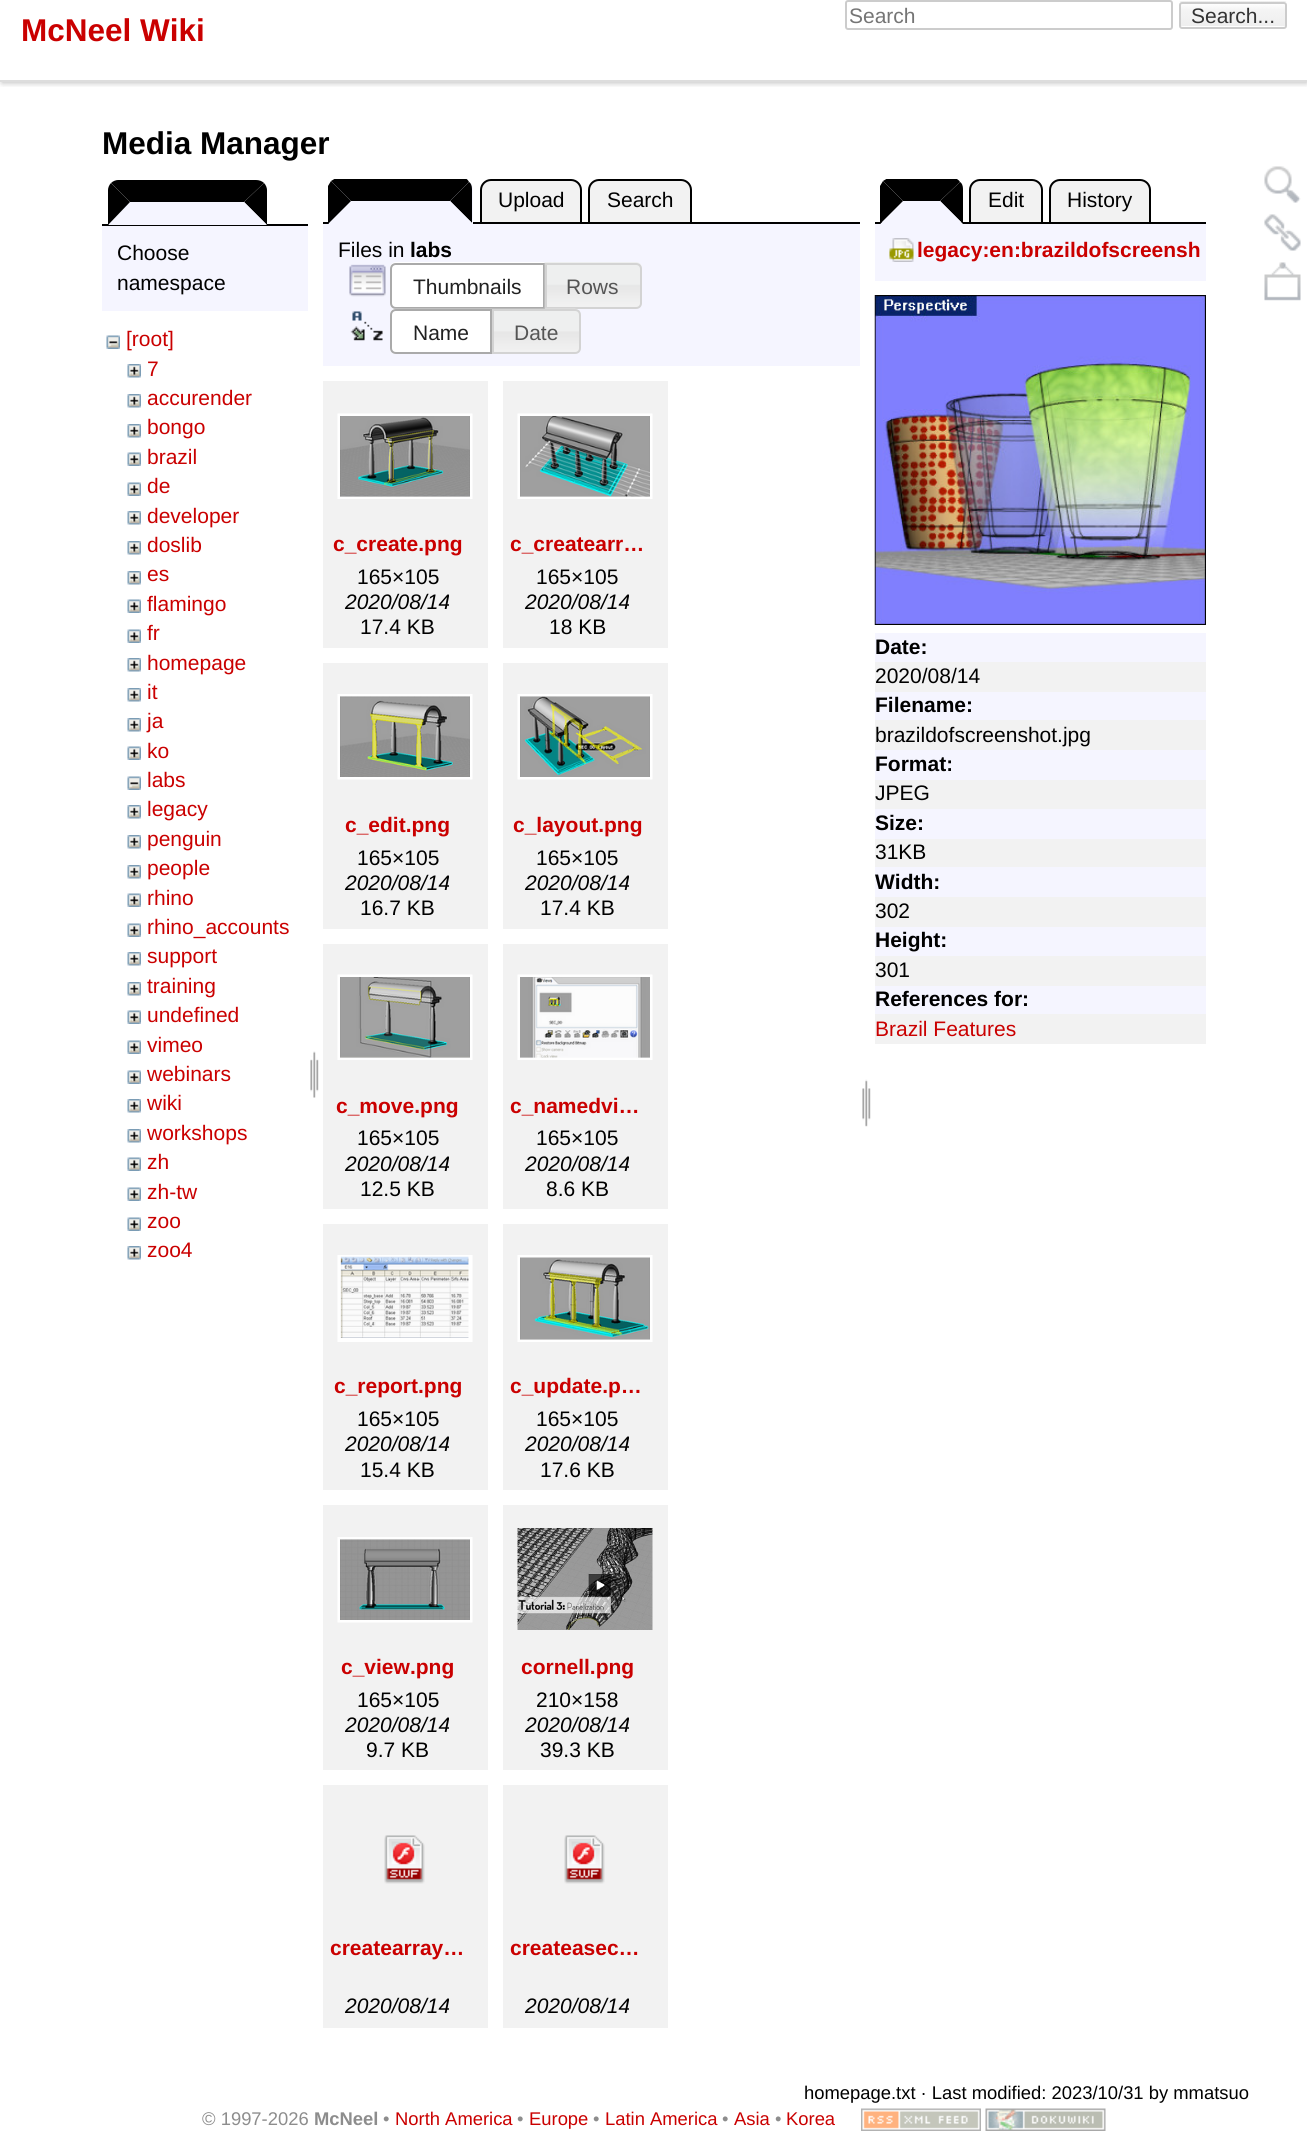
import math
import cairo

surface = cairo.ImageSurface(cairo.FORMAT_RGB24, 1307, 2147)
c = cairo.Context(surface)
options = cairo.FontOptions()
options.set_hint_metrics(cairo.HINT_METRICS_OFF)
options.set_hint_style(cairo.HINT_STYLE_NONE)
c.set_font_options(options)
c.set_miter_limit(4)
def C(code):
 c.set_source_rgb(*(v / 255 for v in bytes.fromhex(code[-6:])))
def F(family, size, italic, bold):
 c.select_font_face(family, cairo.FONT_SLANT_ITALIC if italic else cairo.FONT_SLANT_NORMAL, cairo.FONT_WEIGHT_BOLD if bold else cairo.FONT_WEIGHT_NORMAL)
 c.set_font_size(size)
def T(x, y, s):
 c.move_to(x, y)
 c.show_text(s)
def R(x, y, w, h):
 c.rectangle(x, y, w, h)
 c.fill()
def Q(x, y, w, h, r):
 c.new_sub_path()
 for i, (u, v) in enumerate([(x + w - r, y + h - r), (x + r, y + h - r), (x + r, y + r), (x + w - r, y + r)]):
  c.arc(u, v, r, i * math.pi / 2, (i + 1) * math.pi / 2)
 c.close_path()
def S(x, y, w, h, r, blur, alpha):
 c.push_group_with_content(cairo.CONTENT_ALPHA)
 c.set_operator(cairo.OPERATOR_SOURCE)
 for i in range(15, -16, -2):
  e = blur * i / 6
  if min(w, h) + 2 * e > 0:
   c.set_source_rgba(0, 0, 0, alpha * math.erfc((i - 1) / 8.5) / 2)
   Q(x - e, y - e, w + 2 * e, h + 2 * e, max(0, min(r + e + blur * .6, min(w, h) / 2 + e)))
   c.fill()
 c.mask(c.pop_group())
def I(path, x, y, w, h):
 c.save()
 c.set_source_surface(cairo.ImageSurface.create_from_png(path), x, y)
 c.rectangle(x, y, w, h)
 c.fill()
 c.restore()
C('ffffff')
c.paint()
c.save()
c.rectangle(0,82,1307,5)
c.clip()
C('000000')
S(2,-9,1305,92,0,3,.25)
c.restore()
C('dddddd')
R(0,80,1307,2)
Q(846,1,326,28,2)
C('cccccc')
c.stroke()
F('Liberation Sans',21,0,0)
C('757575')
T(849,23,'Search')
I('1.png',1179,1,108,27)
Q(1180,3,106,25,2)
C('cccccc')
c.stroke()
C('333333')
T(1191,23,'Search...')
F('Liberation Sans',31.5,0,1)
C('ca0000')
T(21,41,'McNeel Wiki')
C('000000')
T(102,154,'Media Manager')
c.new_path()
c.move_to(118,180)
c.line_to(256,180)
c.curve_to(259,180,262,181,264,183)
c.line_to(244,202)
c.line_to(130,202)
c.line_to(111,183)
c.curve_to(113,181,116,180,118,180)
c.close_path()
c.fill()
R(102,224,206,2)
c.new_path()
c.move_to(264,183)
c.line_to(244,202)
c.line_to(267,225)
c.line_to(267,190)
c.curve_to(267,188,266,185,264,183)
c.close_path()
c.fill()
C('f5f5ff')
c.new_path()
c.move_to(267,225)
c.line_to(244,202)
c.line_to(130,202)
c.line_to(108,225)
c.close_path()
c.fill()
C('000000')
c.new_path()
c.move_to(108,225)
c.line_to(108,190)
c.curve_to(108,188,109,185,111,183)
c.line_to(130,202)
c.close_path()
c.fill()
C('f5f5ff')
R(102,226,206,85)
F('Liberation Sans',21,0,0)
C('000000')
T(117,260,'Choose')
T(117,290,'namespace')
I('2.png',106,335,14,14)
C('ca0000')
T(126,346,'[root]')
I('3.png',127,364,14,14)
T(147,376,'7')
I('3.png',127,394,14,14)
T(147,405,'accurender')
I('3.png',127,424,14,14)
T(147,434,'bongo')
I('4.png',127,452,14,14)
T(147,464,'brazil')
I('4.png',127,482,14,14)
T(147,493,'de')
I('3.png',127,511,14,14)
T(147,523,'developer')
I('3.png',127,541,14,14)
T(147,552,'doslib')
I('3.png',127,571,14,14)
T(147,581,'es')
I('4.png',127,599,14,14)
T(147,611,'flamingo')
I('4.png',127,629,14,14)
T(147,640,'fr')
I('3.png',127,658,14,14)
T(147,670,'homepage')
I('3.png',127,688,14,14)
T(147,699,'it')
I('3.png',127,718,14,14)
T(147,728,'ja')
I('4.png',127,746,14,14)
T(147,758,'ko')
I('2.png',127,776,14,14)
T(147,787,'labs')
I('3.png',127,805,14,14)
T(147,816,'legacy')
I('3.png',127,835,14,14)
T(147,846,'penguin')
I('3.png',127,865,14,14)
T(147,875,'people')
I('4.png',127,893,14,14)
T(147,905,'rhino')
I('4.png',127,923,14,14)
T(147,934,'rhino_accounts')
I('3.png',127,952,14,14)
T(147,963,'support')
I('3.png',127,982,14,14)
T(147,993,'training')
I('4.png',127,1010,14,14)
T(147,1022,'undefined')
I('4.png',127,1040,14,14)
T(147,1052,'vimeo')
I('4.png',127,1070,14,14)
T(147,1081,'webinars')
I('3.png',127,1099,14,14)
T(147,1110,'wiki')
I('3.png',127,1129,14,14)
T(147,1140,'workshops')
I('4.png',127,1157,14,14)
T(147,1169,'zh')
I('4.png',127,1187,14,14)
T(147,1199,'zh-tw')
I('4.png',127,1217,14,14)
T(147,1228,'zoo')
I('3.png',127,1246,14,14)
T(147,1257,'zoo4')
I('5.png',310,1051,9,47)
C('f2f2f2')
c.new_path()
c.move_to(491,180)
c.line_to(571,180)
c.curve_to(576.5,180,581,184.5,581,190)
c.line_to(581,223)
c.line_to(481,223)
c.line_to(481,190)
c.curve_to(481,184.5,485.5,180,491,180)
c.close_path()
c.fill_preserve()
C('000000')
c.stroke()
C('f2f2f2')
c.new_path()
c.move_to(599,180)
c.line_to(681,180)
c.curve_to(686.5,180,691,184.5,691,190)
c.line_to(691,223)
c.line_to(589,223)
c.line_to(589,190)
c.curve_to(589,184.5,593.5,180,599,180)
c.close_path()
c.fill_preserve()
C('000000')
c.stroke()
R(323,222,537,2)
C('f5f5ff')
c.new_path()
c.move_to(340,179)
c.line_to(462,179)
c.curve_to(468,179,473,184,473,190)
c.line_to(473,224)
c.line_to(329,224)
c.line_to(329,190)
c.curve_to(329,184,334,179,340,179)
c.close_path()
c.fill()
c.save()
c.rectangle(323,179,537,45)
c.clip()
C('000000')
c.new_path()
c.move_to(465,178)
c.line_to(336,178)
c.line_to(331,181)
c.line_to(351,201)
c.line_to(450,201)
c.line_to(469,182)
c.curve_to(468,180,467,179,465,178)
c.close_path()
c.fill()
c.restore()
C('000000')
c.new_path()
c.move_to(469,182)
c.line_to(450,201)
c.line_to(472,223)
c.line_to(472,189)
c.curve_to(472,186,471,183,469,182)
c.close_path()
c.fill()
C('f5f5ff')
c.new_path()
c.move_to(472,223)
c.line_to(450,201)
c.line_to(351,201)
c.line_to(328,224)
c.line_to(472,224)
c.close_path()
c.fill()
C('000000')
c.new_path()
c.move_to(328,224)
c.line_to(351,201)
c.line_to(331,181)
c.line_to(328,186)
c.close_path()
c.fill()
T(498,207,'Upload')
T(607,207,'Search')
C('f5f5ff')
R(323,224,537,142)
C('000000')
T(338,257,'Files in')
F('Liberation Sans',21,0,1)
T(410,257,'labs')
I('6.png',349,264,37,33)
C('ffffff')
c.new_path()
c.move_to(396,263)
c.line_to(545,263)
c.line_to(545,309)
c.line_to(396,309)
c.curve_to(392.5,309,390,306.5,390,303)
c.line_to(390,269)
c.curve_to(390,265.5,392.5,263,396,263)
c.close_path()
c.fill()
I('7.png',390,262,154,5)
c.new_path()
c.move_to(396,264)
c.line_to(544,264)
c.line_to(544,308)
c.line_to(396,308)
c.curve_to(393,308,391,306,391,303)
c.line_to(391,269)
c.curve_to(391,266,393,264,396,264)
c.close_path()
C('aaaaaa')
c.stroke()
F('Liberation Sans',21,0,0)
C('212121')
T(413,294,'Thumbnails')
I('8.png',544,262,98,47)
c.new_path()
c.move_to(546,264)
c.line_to(636,264)
c.curve_to(639,264,641,266,641,269)
c.line_to(641,303)
c.curve_to(641,306,639,308,636,308)
c.line_to(546,308)
c.close_path()
C('d3d3d3')
c.stroke()
C('555555')
T(566,294,'Rows')
I('9.png',350,311,33,30)
C('ffffff')
c.new_path()
c.move_to(396,309)
c.line_to(492,309)
c.line_to(492,354)
c.line_to(396,354)
c.curve_to(392.5,354,390,351.5,390,348)
c.line_to(390,315)
c.curve_to(390,311.5,392.5,309,396,309)
c.close_path()
c.fill()
I('10.png',391,308,101,3)
c.new_path()
c.move_to(396,310)
c.line_to(491,310)
c.line_to(491,353)
c.line_to(396,353)
c.curve_to(393,353,391,351,391,348)
c.line_to(391,315)
c.curve_to(391,312,393,310,396,310)
c.close_path()
C('aaaaaa')
c.stroke()
C('212121')
T(413,340,'Name')
I('11.png',492,308,88,45)
c.new_path()
c.move_to(493,310)
c.line_to(575,310)
c.curve_to(578,310,580,312,580,315)
c.line_to(580,348)
c.curve_to(580,351,578,353,575,353)
c.line_to(493,353)
c.close_path()
C('d3d3d3')
c.stroke()
C('555555')
T(514,340,'Date')
C('f2f2f2')
R(323,381,165,267)
I('12.png',337,413,136,86)
F('Liberation Sans',21,0,1)
C('ca0000')
T(333,551,'c_create.png')
F('Liberation Sans',21,0,0)
C('000000')
T(357,584,'165×105')
F('Liberation Sans',21,1,0)
T(345,609,'2020/08/14')
F('Liberation Sans',21,0,0)
T(360,634,'17.4 KB')
C('f2f2f2')
R(503,381,165,267)
I('13.png',517,413,136,86)
F('Liberation Sans',21,0,1)
C('ca0000')
T(510,551,'c_createarr…')
F('Liberation Sans',21,0,0)
C('000000')
T(536,584,'165×105')
F('Liberation Sans',21,1,0)
T(525,609,'2020/08/14')
F('Liberation Sans',21,0,0)
T(549,634,'18 KB')
C('f2f2f2')
R(323,663,165,266)
I('14.png',337,694,136,86)
F('Liberation Sans',21,0,1)
C('ca0000')
T(345,832,'c_edit.png')
F('Liberation Sans',21,0,0)
C('000000')
T(357,865,'165×105')
F('Liberation Sans',21,1,0)
T(345,890,'2020/08/14')
F('Liberation Sans',21,0,0)
T(360,915,'16.7 KB')
C('f2f2f2')
R(503,663,165,266)
I('15.png',517,694,136,86)
F('Liberation Sans',21,0,1)
C('ca0000')
T(513,832,'c_layout.png')
F('Liberation Sans',21,0,0)
C('000000')
T(536,865,'165×105')
F('Liberation Sans',21,1,0)
T(525,890,'2020/08/14')
F('Liberation Sans',21,0,0)
T(540,915,'17.4 KB')
C('f2f2f2')
R(323,944,165,265)
I('16.png',337,974,136,86)
F('Liberation Sans',21,0,1)
C('ca0000')
T(336,1113,'c_move.png')
F('Liberation Sans',21,0,0)
C('000000')
T(357,1145,'165×105')
F('Liberation Sans',21,1,0)
T(345,1171,'2020/08/14')
F('Liberation Sans',21,0,0)
T(360,1196,'12.5 KB')
C('f2f2f2')
R(503,944,165,265)
I('17.png',517,974,136,86)
F('Liberation Sans',21,0,1)
C('ca0000')
T(510,1113,'c_namedvi…')
F('Liberation Sans',21,0,0)
C('000000')
T(536,1145,'165×105')
F('Liberation Sans',21,1,0)
T(525,1171,'2020/08/14')
F('Liberation Sans',21,0,0)
T(546,1196,'8.6 KB')
C('f2f2f2')
R(323,1224,165,266)
I('18.png',337,1255,136,87)
F('Liberation Sans',21,0,1)
C('ca0000')
T(334,1393,'c_report.png')
F('Liberation Sans',21,0,0)
C('000000')
T(357,1426,'165×105')
F('Liberation Sans',21,1,0)
T(345,1451,'2020/08/14')
F('Liberation Sans',21,0,0)
T(360,1477,'15.4 KB')
C('f2f2f2')
R(503,1224,165,266)
I('19.png',517,1255,136,87)
F('Liberation Sans',21,0,1)
C('ca0000')
T(510,1393,'c_update.p…')
F('Liberation Sans',21,0,0)
C('000000')
T(536,1426,'165×105')
F('Liberation Sans',21,1,0)
T(525,1451,'2020/08/14')
F('Liberation Sans',21,0,0)
T(540,1477,'17.6 KB')
C('f2f2f2')
R(323,1505,165,265)
I('20.png',337,1537,136,86)
F('Liberation Sans',21,0,1)
C('ca0000')
T(341,1674,'c_view.png')
F('Liberation Sans',21,0,0)
C('000000')
T(357,1707,'165×105')
F('Liberation Sans',21,1,0)
T(345,1732,'2020/08/14')
F('Liberation Sans',21,0,0)
T(366,1757,'9.7 KB')
C('f2f2f2')
R(503,1505,165,265)
I('21.png',517,1528,136,102)
F('Liberation Sans',21,0,1)
C('ca0000')
T(521,1674,'cornell.png')
F('Liberation Sans',21,0,0)
C('000000')
T(536,1707,'210×158')
F('Liberation Sans',21,1,0)
T(525,1732,'2020/08/14')
F('Liberation Sans',21,0,0)
T(540,1757,'39.3 KB')
C('f2f2f2')
R(323,1785,165,243)
I('22.png',384,1835,41,49)
F('Liberation Sans',21,0,1)
C('ca0000')
T(330,1955,'createarray…')
F('Liberation Sans',21,1,0)
C('000000')
T(345,2013,'2020/08/14')
C('f2f2f2')
R(503,1785,165,243)
I('22.png',564,1835,41,49)
F('Liberation Sans',21,0,1)
C('ca0000')
T(510,1955,'createasec…')
F('Liberation Sans',21,1,0)
C('000000')
T(525,2013,'2020/08/14')
I('23.png',862,1079,9,48)
c.save()
c.rectangle(875,179,331,45)
c.clip()
c.new_path()
c.move_to(955,178)
c.line_to(888,178)
c.line_to(883,181)
c.line_to(903,201)
c.line_to(940,201)
c.line_to(960,182)
c.curve_to(959,180,957,179,955,178)
c.close_path()
c.fill()
c.restore()
C('f2f2f2')
c.new_path()
c.move_to(980,180)
c.line_to(1032,180)
c.curve_to(1037.5,180,1042,184.5,1042,190)
c.line_to(1042,223)
c.line_to(970,223)
c.line_to(970,190)
c.curve_to(970,184.5,974.5,180,980,180)
c.close_path()
c.fill_preserve()
C('000000')
c.stroke()
C('f2f2f2')
c.new_path()
c.move_to(1060,180)
c.line_to(1140,180)
c.curve_to(1145.5,180,1150,184.5,1150,190)
c.line_to(1150,223)
c.line_to(1050,223)
c.line_to(1050,190)
c.curve_to(1050,184.5,1054.5,180,1060,180)
c.close_path()
c.fill_preserve()
C('000000')
c.stroke()
R(875,222,331,2)
c.new_path()
c.move_to(960,182)
c.line_to(940,201)
c.line_to(963,224)
c.line_to(963,189)
c.curve_to(963,186,962,183,960,182)
c.close_path()
c.fill()
C('f5f5ff')
c.new_path()
c.move_to(963,224)
c.line_to(940,201)
c.line_to(903,201)
c.line_to(880,224)
c.close_path()
c.fill()
C('000000')
c.new_path()
c.move_to(880,224)
c.line_to(903,201)
c.line_to(883,181)
c.line_to(880,186)
c.close_path()
c.fill()
F('Liberation Sans',21,0,0)
T(988,207,'Edit')
T(1067,207,'History')
C('f5f5ff')
R(875,224,331,57)
I('24.png',889,238,25,24)
F('Liberation Sans',21,0,1)
C('ca0000')
T(917,257,'legacy:en:brazildofscreensh')
I('25.png',874,295,332,330)
C('f5f5ff')
R(875,633,331,29)
C('000000')
T(875,654,'Date:')
C('f2f2f2')
R(875,662,331,30)
F('Liberation Sans',21,0,0)
C('000000')
T(875,683,'2020/08/14')
C('f5f5ff')
R(875,692,331,28)
F('Liberation Sans',21,0,1)
C('000000')
T(875,712,'Filename:')
C('f2f2f2')
R(875,720,331,30)
F('Liberation Sans',21,0,0)
C('000000')
T(875,742,'brazildofscreenshot.jpg')
C('f5f5ff')
R(875,750,331,30)
F('Liberation Sans',21,0,1)
C('000000')
T(875,771,'Format:')
C('f2f2f2')
R(875,780,331,29)
F('Liberation Sans',21,0,0)
C('000000')
T(875,800,'JPEG')
C('f5f5ff')
R(875,809,331,30)
F('Liberation Sans',21,0,1)
C('000000')
T(875,830,'Size:')
C('f2f2f2')
R(875,839,331,28)
F('Liberation Sans',21,0,0)
C('000000')
T(875,859,'31KB')
C('f5f5ff')
R(875,867,331,30)
F('Liberation Sans',21,0,1)
C('000000')
T(875,889,'Width:')
C('f2f2f2')
R(875,897,331,30)
F('Liberation Sans',21,0,0)
C('000000')
T(875,918,'302')
C('f5f5ff')
R(875,927,331,29)
F('Liberation Sans',21,0,1)
C('000000')
T(875,947,'Height:')
C('f2f2f2')
R(875,956,331,30)
F('Liberation Sans',21,0,0)
C('000000')
T(875,977,'301')
C('f5f5ff')
R(875,986,331,28)
F('Liberation Sans',21,0,1)
C('000000')
T(875,1006,'References for:')
C('f2f2f2')
R(875,1014,331,30)
F('Liberation Sans',21,0,0)
C('ca0000')
T(875,1036,'Brazil Features')
F('Liberation Sans',18.4,0,0)
C('000000')
T(804,2099,'homepage.txt · Last modified: 2023/10/31 by mmatsuo')
I('26.png',1264,166,37,37)
I('27.png',1264,214,37,37)
I('28.png',1264,262,37,39)
C('8d8d8d')
T(202,2125,'© 1997-2026')
F('Liberation Sans',18.4,0,1)
T(314,2125,'McNeel')
F('Liberation Sans',18.4,0,0)
T(383,2125,'•')
C('ca0000')
T(395,2125,'North America')
C('8d8d8d')
T(517,2125,'•')
C('ca0000')
T(529,2125,'Europe')
C('8d8d8d')
T(593,2125,'•')
C('ca0000')
T(605,2125,'Latin America')
C('8d8d8d')
T(722,2125,'•')
C('ca0000')
T(734,2125,'Asia')
C('8d8d8d')
T(775,2125,'•')
C('ca0000')
T(786,2125,'Korea')
I('29.png',861,2108,120,23)
I('30.png',985,2108,121,23)
surface.write_to_png('o.png')
